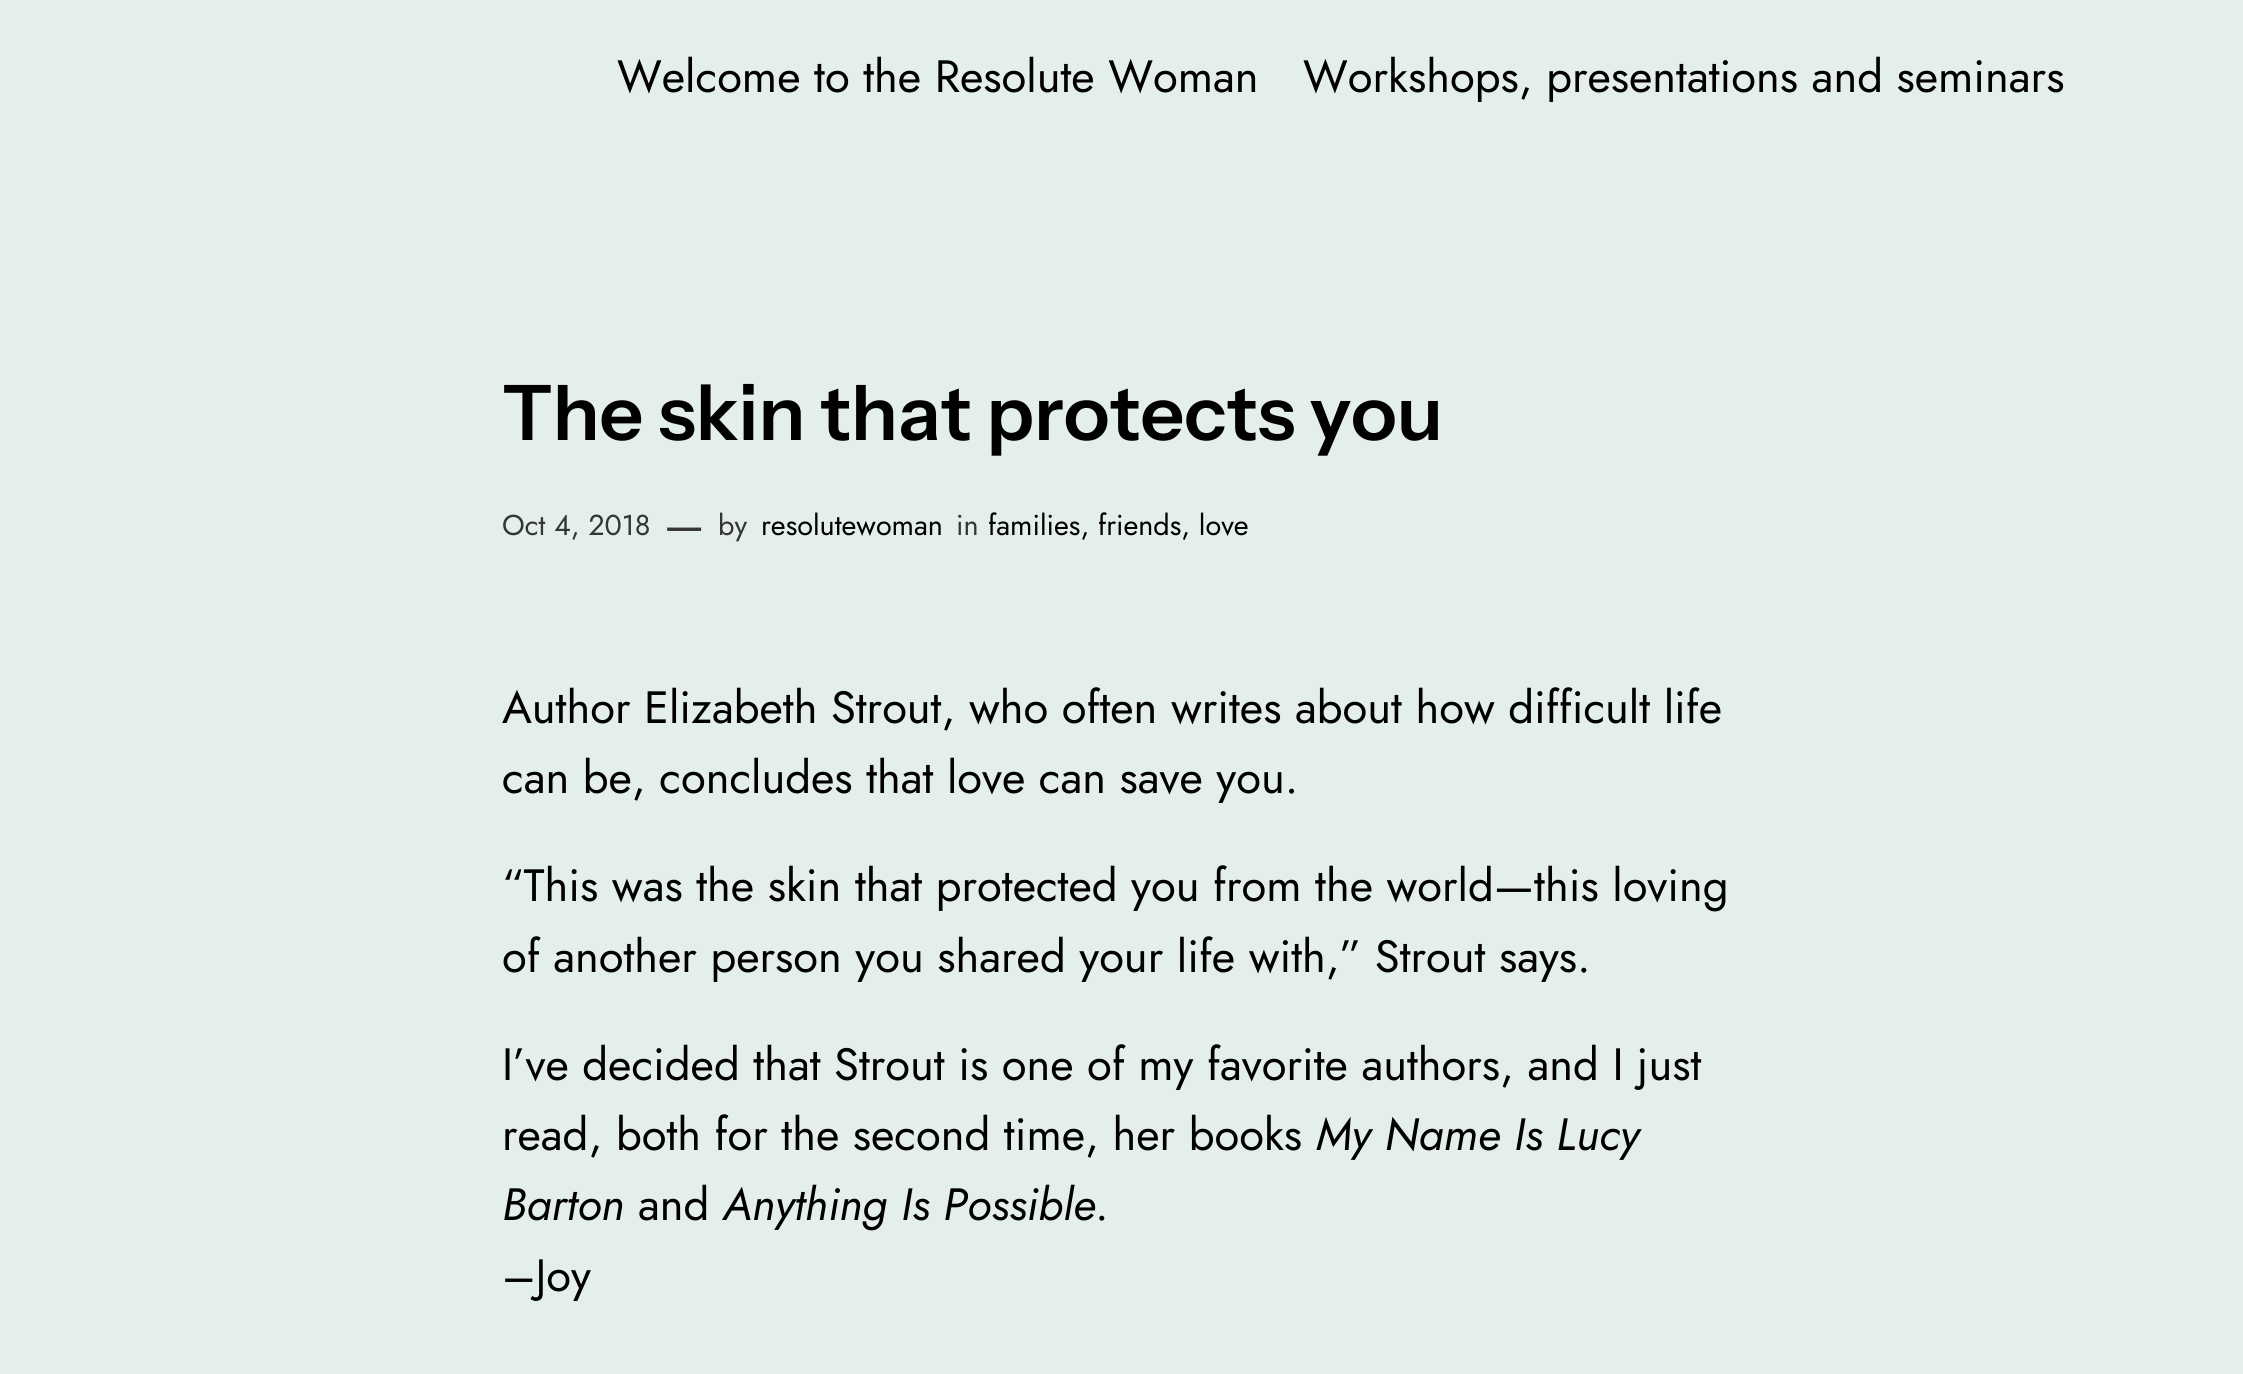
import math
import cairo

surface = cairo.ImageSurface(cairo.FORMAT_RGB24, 2243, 1374)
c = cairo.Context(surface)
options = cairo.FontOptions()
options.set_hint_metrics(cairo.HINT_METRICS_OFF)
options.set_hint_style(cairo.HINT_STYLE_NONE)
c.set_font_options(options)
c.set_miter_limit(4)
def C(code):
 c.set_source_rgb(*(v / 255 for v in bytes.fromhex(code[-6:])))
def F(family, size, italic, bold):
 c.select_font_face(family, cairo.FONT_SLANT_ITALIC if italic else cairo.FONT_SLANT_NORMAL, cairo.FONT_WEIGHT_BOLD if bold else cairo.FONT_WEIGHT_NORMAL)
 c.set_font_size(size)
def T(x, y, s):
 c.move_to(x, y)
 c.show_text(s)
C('e4efeb')
c.paint()
F('Jost',45.25,0,0)
C('000000')
T(617,92,'Welcome to the Resolute Woman')
T(1303,92,'Workshops, presentations and seminars')
F('Instrument Sans SemiBold',76.5,0,0)
T(502,440,'The skin that protects you')
F('Jost',28.75,0,0)
C('353535')
T(502,535,'Oct 4, 2018')
F('Jost',45.25,0,0)
T(664,540,'—')
F('Jost',28.75,0,0)
T(718,535,'by')
C('000000')
T(761,535,'resolutewoman')
C('353535')
T(956,535,'in')
C('000000')
T(988,535,'families, friends, love')
F('Jost',45.25,0,0)
T(502,723,'Author Elizabeth Strout, who often writes about how difficult life')
T(502,793,'can be, concludes that love can save you.')
T(502,901,'“This was the skin that protected you from the world—this loving')
T(502,972,'of another person you shared your life with,” Strout says.')
T(502,1080,'I’ve decided that Strout is one of my favorite authors, and I just')
T(502,1150,'read, both for the second time, her books')
F('Jost',45.25,1,0)
T(1316,1150,'My Name Is Lucy')
T(502,1220,'Barton')
F('Jost',45.25,0,0)
T(638,1220,'and')
F('Jost',45.25,1,0)
T(723,1220,'Anything Is Possible')
F('Jost',45.25,0,0)
T(1095,1220,'.')
T(502,1291,'–Joy')
surface.write_to_png('o.png')
